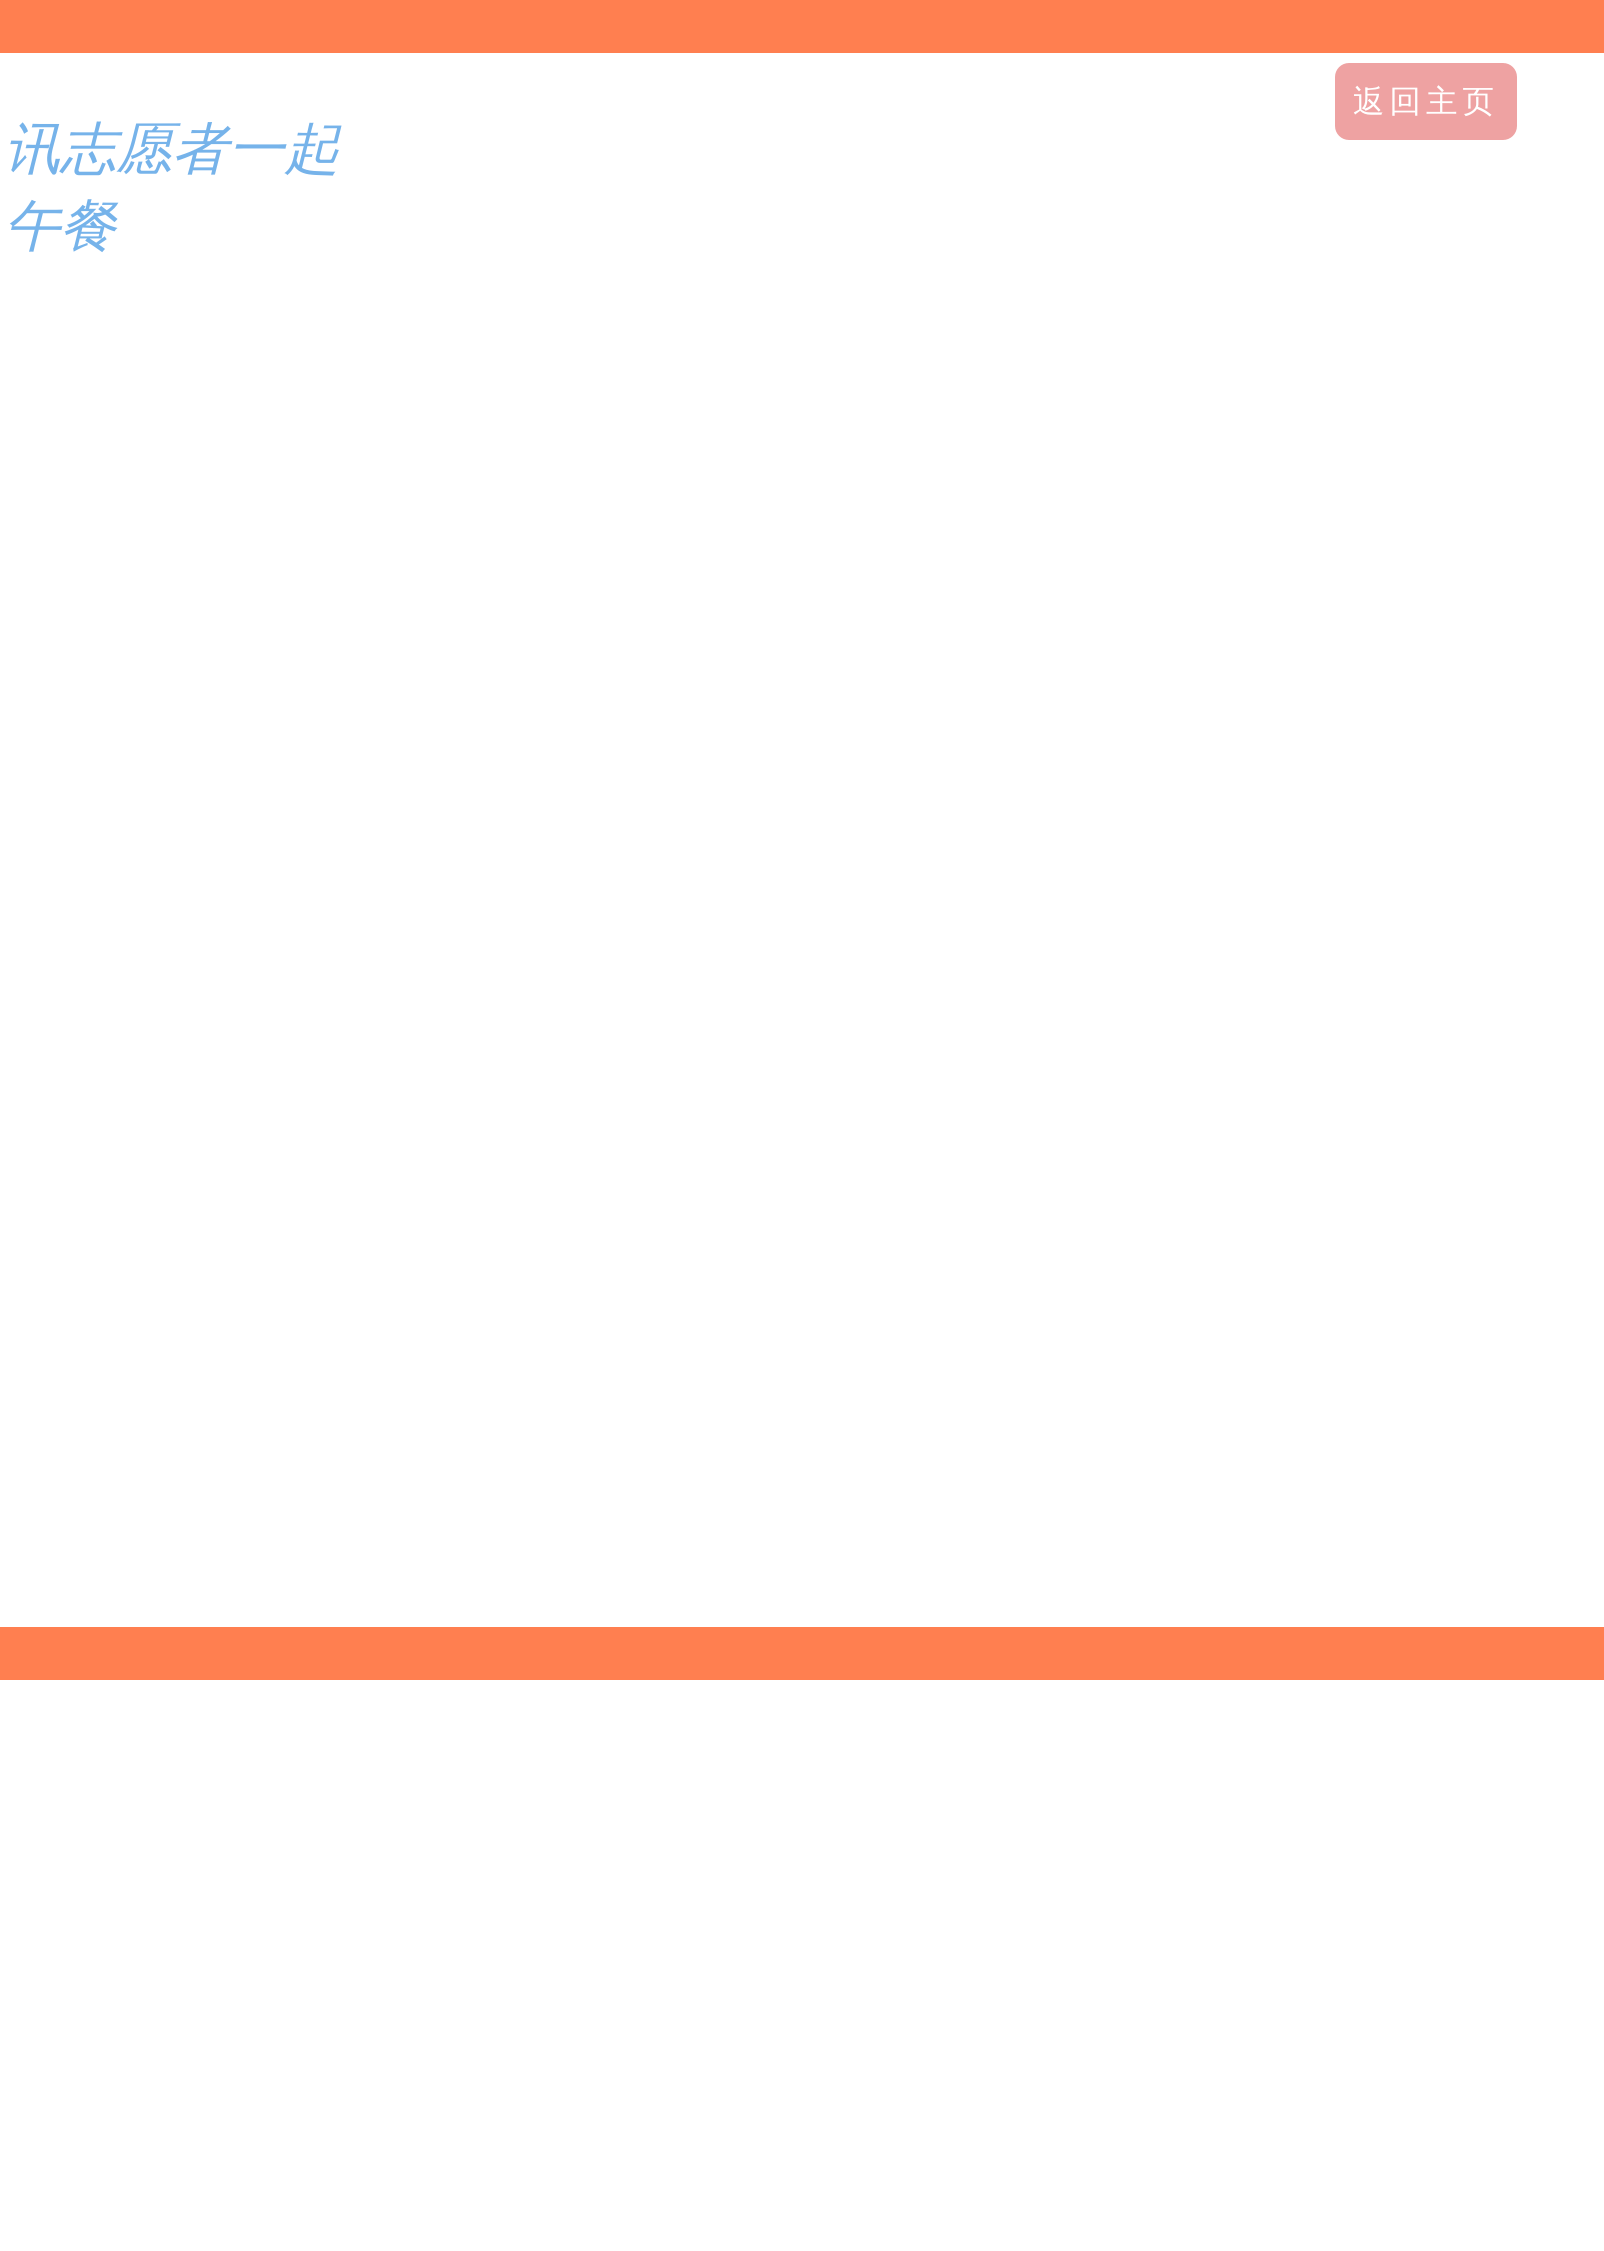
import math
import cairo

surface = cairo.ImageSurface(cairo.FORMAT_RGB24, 1604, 2251)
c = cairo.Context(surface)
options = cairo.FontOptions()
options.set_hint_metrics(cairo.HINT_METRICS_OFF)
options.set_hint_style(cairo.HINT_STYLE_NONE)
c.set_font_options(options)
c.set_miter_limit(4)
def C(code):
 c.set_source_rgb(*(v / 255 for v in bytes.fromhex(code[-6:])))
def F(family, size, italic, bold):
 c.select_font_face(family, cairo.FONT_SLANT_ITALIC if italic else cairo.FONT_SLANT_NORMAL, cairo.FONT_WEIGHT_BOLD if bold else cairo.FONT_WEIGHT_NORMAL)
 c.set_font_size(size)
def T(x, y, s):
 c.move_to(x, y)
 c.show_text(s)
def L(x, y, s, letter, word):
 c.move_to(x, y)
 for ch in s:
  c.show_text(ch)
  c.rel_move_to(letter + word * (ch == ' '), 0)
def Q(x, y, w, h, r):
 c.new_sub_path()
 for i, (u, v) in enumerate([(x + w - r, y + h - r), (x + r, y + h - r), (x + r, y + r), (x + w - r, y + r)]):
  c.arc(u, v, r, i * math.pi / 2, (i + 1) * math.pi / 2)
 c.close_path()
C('ffffff')
c.paint()
c.rectangle(-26.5,26.5,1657,1627)
C('ff7f50')
c.set_line_width(53)
c.stroke()
C('eea2a2')
Q(1335,63,182,77,14)
c.fill()
F('WenQuanYi Zen Hei Medium',31.5,0,0)
C('ffffff')
L(1353,112,'返回主页',5,0)
F('WenQuanYi Zen Hei Medium',56,1,0)
C('76b3ea')
T(4,168,'讯志愿者一起')
T(4,245,'午餐')
surface.write_to_png('o.png')
